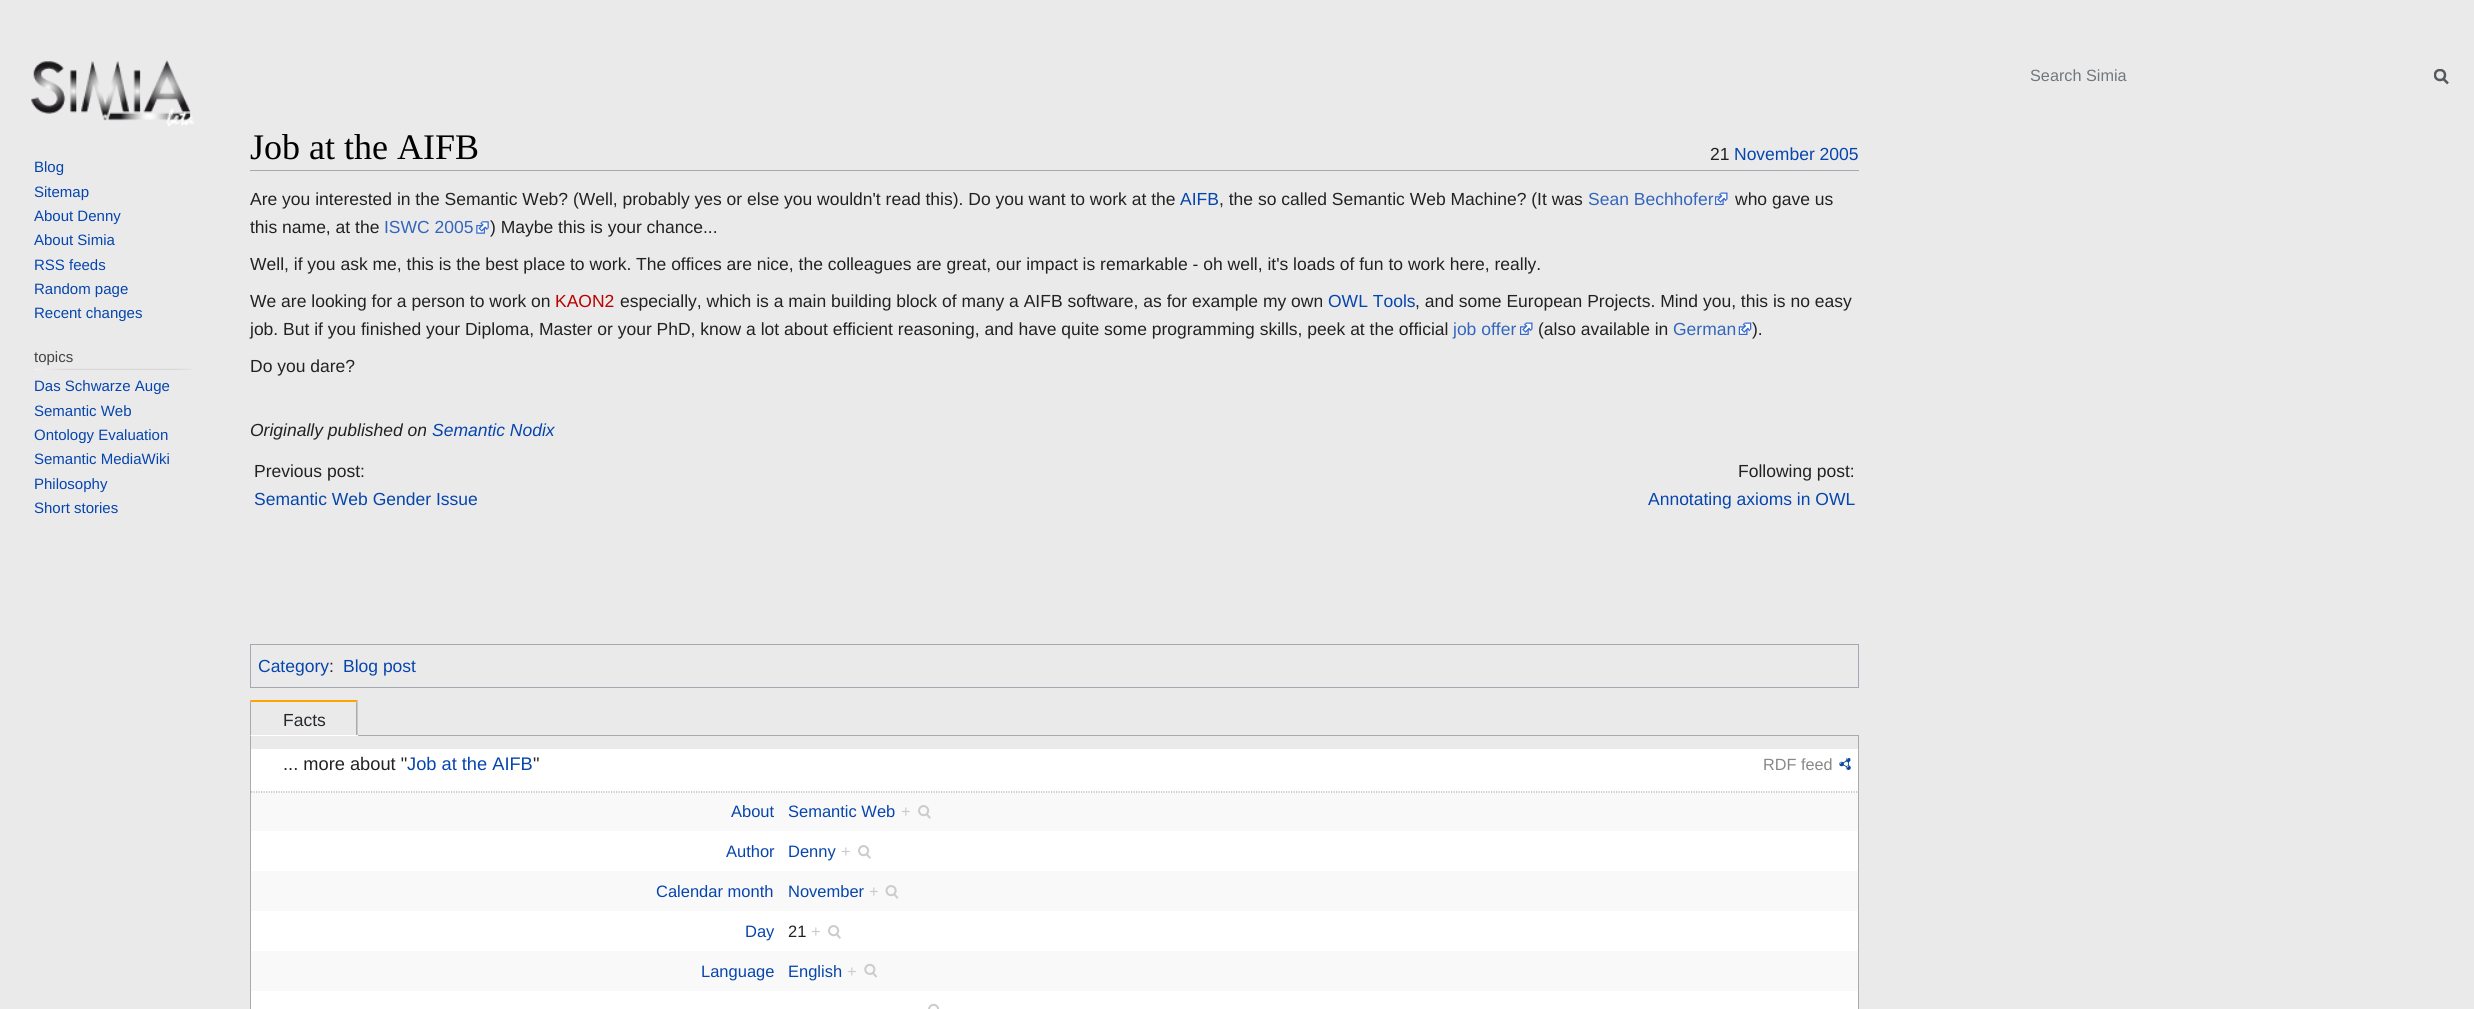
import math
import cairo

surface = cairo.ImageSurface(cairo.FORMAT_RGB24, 2474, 1009)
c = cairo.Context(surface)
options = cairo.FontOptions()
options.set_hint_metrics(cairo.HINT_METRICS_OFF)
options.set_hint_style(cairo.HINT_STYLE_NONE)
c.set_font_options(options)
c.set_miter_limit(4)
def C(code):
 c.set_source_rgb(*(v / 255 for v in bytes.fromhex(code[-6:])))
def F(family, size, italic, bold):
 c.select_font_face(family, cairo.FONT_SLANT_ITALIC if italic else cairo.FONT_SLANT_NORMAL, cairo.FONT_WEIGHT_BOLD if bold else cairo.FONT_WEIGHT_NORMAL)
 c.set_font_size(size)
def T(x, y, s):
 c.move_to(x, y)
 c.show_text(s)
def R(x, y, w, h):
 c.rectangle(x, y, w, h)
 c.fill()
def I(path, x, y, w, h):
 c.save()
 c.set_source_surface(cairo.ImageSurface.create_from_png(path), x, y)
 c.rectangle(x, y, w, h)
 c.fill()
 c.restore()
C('eaeaea')
c.paint()
F('Liberation Sans',16.25,0,0)
C('72777d')
T(2030,81,'Search Simia')
c.new_path()
c.move_to(2448,83.5)
c.line_to(2443,78.5)
C('54595d')
c.set_line_width(2.5)
c.stroke()
c.save()
c.rectangle(2434,69,15,16)
c.clip()
c.arc(2440,75,5,0,2 * math.pi)
c.stroke()
c.restore()
I('1.png',31,60,164,67)
F('Liberation Sans',15,0,0)
C('0645ad')
T(34,172,'Blog')
T(34,197,'Sitemap')
T(34,221,'About Denny')
T(34,245,'About Simia')
T(34,270,'RSS feeds')
T(34,294,'Random page')
T(34,318,'Recent changes')
C('444444')
T(34,362,'topics')
I('2.png',34,368,158,2)
C('0645ad')
T(34,391,'Das Schwarze Auge')
T(34,416,'Semantic Web')
T(34,440,'Ontology Evaluation')
T(34,464,'Semantic MediaWiki')
T(34,489,'Philosophy')
T(34,513,'Short stories')
C('a2a9b1')
R(250,170,1609,1)
F('Liberation Serif',36,0,0)
C('000000')
T(250,159,'Job at the AIFB')
F('Liberation Sans',17.5,0,0)
C('222222')
T(1710,160,'21')
C('0645ad')
T(1734,160,'November 2005')
C('222222')
T(250,205,'Are you interested in the Semantic Web? (Well, probably yes or else you wouldn\'t read this). Do you want to work at the')
C('0645ad')
T(1180,205,'AIFB')
C('222222')
T(1219,205,', the so called Semantic Web Machine? (It was')
C('3366bb')
T(1588,205,'Sean Bechhofer')
I('3.png',1715,192,13,13)
C('222222')
T(1735,205,'who gave us')
T(250,233,'this name, at the')
C('3366bb')
T(384,233,'ISWC 2005')
I('4.png',476,221,13,13)
C('222222')
T(490,233,') Maybe this is your chance...')
T(250,270,'Well, if you ask me, this is the best place to work. The offices are nice, the colleagues are great, our impact is remarkable - oh well, it\'s loads of fun to work here, really.')
T(250,307,'We are looking for a person to work on')
C('ba0000')
T(555,307,'KAON2')
C('222222')
T(620,307,'especially, which is a main building block of many a AIFB software, as for example my own')
C('0645ad')
T(1328,307,'OWL Tools')
C('222222')
T(1415,307,', and some European Projects. Mind you, this is no easy')
T(250,335,'job. But if you finished your Diploma, Master or your PhD, know a lot about efficient reasoning, and have quite some programming skills, peek at the official')
C('3366bb')
T(1453,335,'job offer')
I('3.png',1520,322,13,13)
C('222222')
T(1538,335,'(also available in')
C('3366bb')
T(1673,335,'German')
I('5.png',1738,322,14,13)
C('222222')
T(1752,335,').')
T(250,372,'Do you dare?')
F('Liberation Sans',17.5,1,0)
T(250,436,'Originally published on')
C('0645ad')
T(432,436,'Semantic Nodix')
F('Liberation Sans',17.5,0,0)
C('222222')
T(254,477,'Previous post:')
C('0645ad')
T(254,505,'Semantic Web Gender Issue')
C('222222')
T(1738,477,'Following post:')
C('0645ad')
T(1648,505,'Annotating axioms in OWL')
c.rectangle(250.5,644.5,1608,43)
C('a2a9b1')
c.set_line_width(1)
c.stroke()
C('0645ad')
T(258,672,'Category')
C('222222')
T(329,672,':')
C('0645ad')
T(343,672,'Blog post')
C('ffa500')
c.new_path()
c.move_to(250,700)
c.line_to(358,700)
c.line_to(356,702)
c.line_to(251,702)
c.close_path()
c.fill()
c.rectangle(250.5,735.5,1608,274)
C('aaaaaa')
c.stroke()
c.new_path()
c.move_to(357.5,700)
c.line_to(357.5,736)
c.line_to(356,735)
c.line_to(356,702.5)
c.close_path()
c.fill()
C('ffffff')
R(250,735,108,1)
C('aaaaaa')
c.new_path()
c.move_to(250,736)
c.line_to(250,700)
c.line_to(251,702.5)
c.line_to(251,735)
c.close_path()
c.fill()
C('24292e')
T(283,726,'Facts')
C('ffffff')
R(251,749,1607,260)
F('Liberation Sans',18.25,0,0)
C('222222')
T(283,770,'... more about "')
C('0645ad')
T(407,770,'Job at the AIFB')
C('222222')
T(533,770,'"')
F('Liberation Sans',16.25,0,0)
C('888888')
T(1763,770,'RDF feed')
I('6.png',1839,758,12,12)
c.new_path()
c.move_to(251,792)
c.line_to(1857.5,792)
C('aaaaaa')
c.set_line_width(1.2)
c.set_dash([1.25,1.25])
c.stroke()
C('f9f9f9')
R(251,793,1607,38)
F('Liberation Sans',16.5,0,0)
C('0645ad')
T(731,817,'About')
T(788,817,'Semantic Web')
C('cccccc')
T(901,817,'+')
I('7.png',918,805,13,14)
C('0645ad')
T(726,857,'Author')
T(788,857,'Denny')
C('cccccc')
T(841,857,'+')
I('8.png',858,845,13,14)
C('f9f9f9')
R(251,871,1607,40)
C('0645ad')
T(656,897,'Calendar month')
T(788,897,'November')
C('cccccc')
T(869,897,'+')
I('9.png',885,885,14,14)
C('0645ad')
T(745,937,'Day')
C('222222')
T(788,937,'21')
C('cccccc')
T(811,937,'+')
I('8.png',828,925,13,14)
C('f9f9f9')
R(251,951,1607,40)
C('0645ad')
T(701,977,'Language')
T(788,977,'English')
C('cccccc')
T(847,977,'+')
I('10.png',864,963,13,15)
I('11.png',928,1003,12,6)
surface.write_to_png('o.png')
